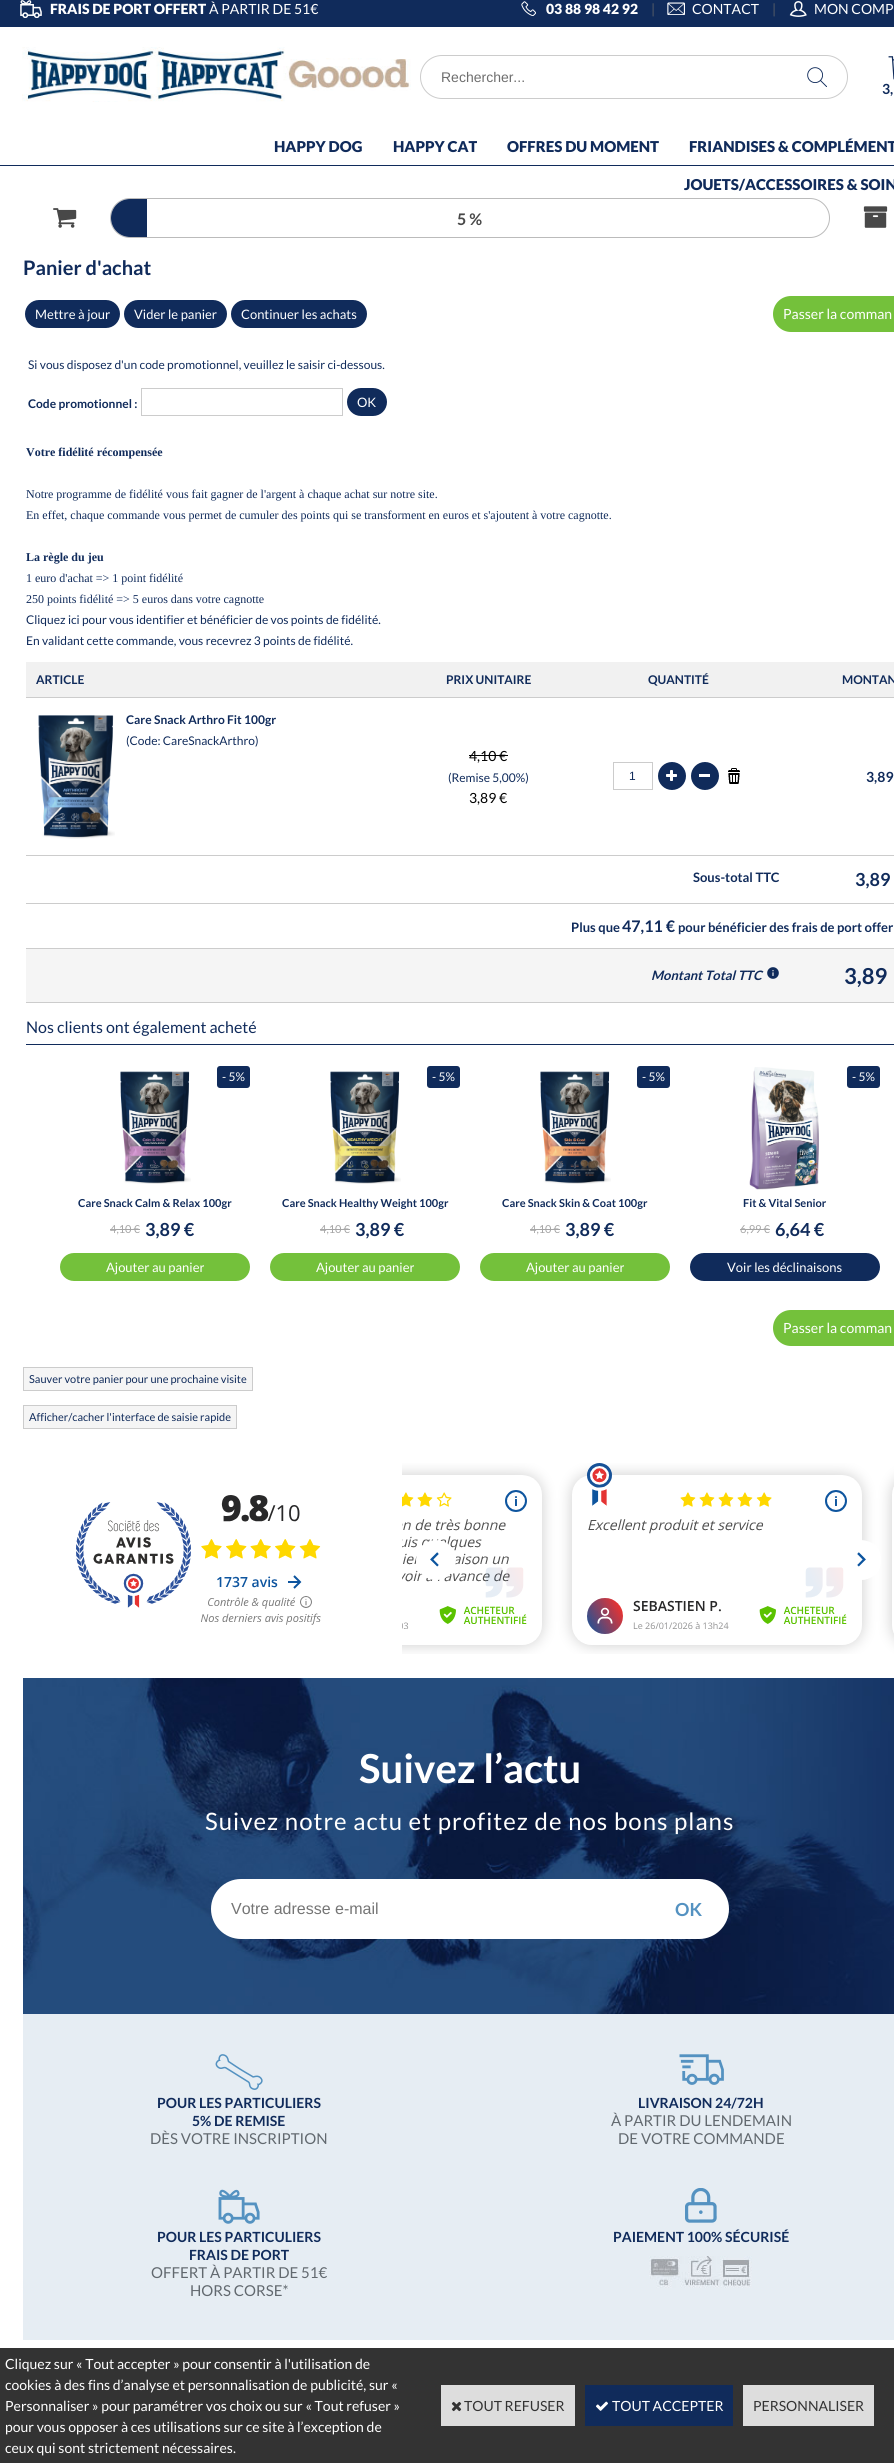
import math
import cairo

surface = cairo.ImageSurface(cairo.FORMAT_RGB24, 894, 2463)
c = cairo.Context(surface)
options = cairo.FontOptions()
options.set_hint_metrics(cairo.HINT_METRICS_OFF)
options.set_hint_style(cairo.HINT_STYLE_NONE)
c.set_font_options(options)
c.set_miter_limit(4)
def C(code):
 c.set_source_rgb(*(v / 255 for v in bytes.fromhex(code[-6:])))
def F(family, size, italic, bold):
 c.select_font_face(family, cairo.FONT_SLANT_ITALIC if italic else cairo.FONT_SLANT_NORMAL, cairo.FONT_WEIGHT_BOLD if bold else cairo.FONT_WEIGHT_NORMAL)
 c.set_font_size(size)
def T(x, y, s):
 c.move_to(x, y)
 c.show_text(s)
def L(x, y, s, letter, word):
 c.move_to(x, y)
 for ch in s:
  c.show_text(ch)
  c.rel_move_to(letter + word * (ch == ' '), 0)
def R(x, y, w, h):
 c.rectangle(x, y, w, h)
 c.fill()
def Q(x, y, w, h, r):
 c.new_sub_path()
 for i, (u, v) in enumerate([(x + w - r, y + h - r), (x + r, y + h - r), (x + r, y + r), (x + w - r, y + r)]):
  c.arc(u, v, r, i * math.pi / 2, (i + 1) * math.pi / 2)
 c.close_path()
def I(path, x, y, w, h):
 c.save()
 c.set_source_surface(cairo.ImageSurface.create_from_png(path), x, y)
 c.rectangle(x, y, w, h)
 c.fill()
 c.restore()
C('ffffff')
c.paint()
C('102b5b')
R(0,0,894,27)
R(0,165,894,1)
I('1.png',20,0,22,18)
F('Lato Black',14,0,0)
C('ffffff')
T(50,14,'FRAIS DE PORT OFFERT')
F('Lato',14,0,0)
T(209,14,'À PARTIR DE 51€')
I('2.png',521,1,15,15)
F('Lato Black',14,0,0)
T(546,14,'03 88 98 42 92')
F('Lato',14,0,0)
C('555c67')
T(651,14,'|')
I('3.png',667,2,18,13)
C('ffffff')
T(692,14,'CONTACT')
C('555c67')
T(772,14,'|')
I('4.png',789,1,18,16)
C('ffffff')
T(814,14,'MON COMP')
I('5.png',22,47,389,55)
Q(420.5,55.5,427,43,21.5)
C('cccccc')
c.set_line_width(1)
c.stroke()
F('Liberation Sans',14,0,0)
C('6e6e6e')
T(441,82,'Rechercher...')
I('6.png',807,67,20,20)
I('7.png',888,56,6,24)
F('Lato',14,0,1)
C('102b5b')
T(882,94,'3,')
F('Lato Black',15,0,0)
T(274,152,'HAPPY DOG')
T(393,152,'HAPPY CAT')
T(507,152,'OFFRES DU MOMENT')
T(689,152,'FRIANDISES & COMPLÉMENT')
T(684,190,'JOUETS/ACCESSOIRES & SOIN')
I('8.png',53,208,24,20)
Q(110.5,198.5,719,39,19.5)
C('bbbbbb')
c.stroke()
C('102b5b')
c.new_path()
c.move_to(130,199)
c.line_to(147,199)
c.line_to(147,237)
c.line_to(130,237)
c.curve_to(119.5,237,111,228.5,111,218)
c.curve_to(111,207.5,119.5,199,130,199)
c.close_path()
c.fill()
F('Lato',16,0,1)
C('484848')
T(457,225,'5 %')
I('9.png',863,206,25,22)
F('Lato',20,0,1)
C('102b5b')
T(23,275,'Panier d\'achat')
Q(25,300,95,28,14)
c.fill()
F('Lato',13,0,0)
C('ffffff')
T(35,319,'Mettre à jour')
C('102b5b')
Q(124,300,103,28,14)
c.fill()
C('ffffff')
T(134,319,'Vider le panier')
C('102b5b')
Q(231,300,136,28,14)
c.fill()
C('ffffff')
T(241,319,'Continuer les achats')
C('74c13b')
Q(773,296,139,36,18)
c.fill()
F('Lato',14,0,0)
C('ffffff')
T(783,319,'Passer la comman')
F('Lato',12,0,0)
C('102b5b')
T(28,369,'Si vous disposez d\'un code promotionnel, veuillez le saisir ci-dessous.')
F('Lato',12,0,1)
T(28,408,'Code promotionnel :')
c.rectangle(141.5,388.5,201,27)
C('cccccc')
c.stroke()
C('102b5b')
Q(347,388,40,28,14)
c.fill()
F('Lato',13,0,0)
C('ffffff')
T(357,407,'OK')
F('Liberation Serif',12,0,1)
C('102b5b')
T(26,456,'Votre fidélité récompensée')
F('Liberation Serif',12,0,0)
T(26,498,'Notre programme de fidélité vous fait gagner de l\'argent à chaque achat sur notre site.')
T(26,519,'En effet, chaque commande vous permet de cumuler des points qui se transforment en euros et s\'ajoutent à votre cagnotte.')
F('Liberation Serif',12,0,1)
T(26,561,'La règle du jeu')
F('Liberation Serif',12,0,0)
T(26,582,'1 euro d\'achat => 1 point fidélité')
T(26,603,'250 points fidélité => 5 euros dans votre cagnotte')
F('Lato',12,0,0)
T(26,624,'Cliquez ici pour vous identifier et bénéficier de vos points de fidélité.')
T(26,645,'En validant cette commande, vous recevrez 3 points de fidélité.')
C('f1f1f1')
R(26,662,868,35)
C('cccccc')
R(26,697,868,1)
F('Lato',12,0,1)
C('102b5b')
T(36,684,'ARTICLE')
T(446,684,'PRIX UNITAIRE')
T(648,684,'QUANTITÉ')
T(842,684,'MONTAN')
C('cccccc')
R(26,855,868,1)
I('10.png',38,715,77,124)
C('102b5b')
T(126,724,'Care Snack Arthro Fit 100gr')
F('Lato',12,0,0)
T(126,745,'(Code: CareSnackArthro)')
F('Lato',14,0,0)
C('000000')
T(469,761,'4,10 €')
R(469,755,39,1)
F('Lato',12,0,0)
C('102b5b')
T(448,782,'(Remise 5,00%)')
F('Lato',14,0,0)
C('000000')
T(469,803,'3,89 €')
c.rectangle(613.5,762.5,39,27)
C('cccccc')
c.stroke()
F('Liberation Sans',12,0,0)
C('102b5b')
T(629,780,'1')
c.new_path()
c.arc(672,776,14,0,2 * math.pi)
c.fill()
I('11.png',666,770,11,11)
c.arc(705,776,14,0,2 * math.pi)
c.fill()
C('ffffff')
R(699,774,11,3)
I('12.png',728,768,12,16)
F('Lato',14,0,1)
C('102b5b')
T(866,782,'3,89')
C('cccccc')
R(26,903,868,1)
F('Lato',13,0,1)
C('102b5b')
T(693,882,'Sous-total TTC')
F('Lato',18,0,1)
T(855,886,'3,89')
C('cccccc')
R(26,948,868,1)
F('Lato',13,0,1)
C('102b5b')
T(571,932,'Plus que')
F('Lato',16,0,1)
T(622,932,'47,11 €')
F('Lato',13,0,1)
T(678,932,'pour bénéficier des frais de port offer')
C('f5f5f5')
R(26,949,868,53)
C('cccccc')
R(26,1002,868,1)
F('Lato',13,1,1)
C('102b5b')
T(651,980,'Montant Total TTC')
I('13.png',767,967,12,12)
F('Lato',22,0,1)
T(844,984,'3,89')
R(26,1044,868,1)
F('Lato',16,0,0)
T(26,1033,'Nos clients ont également acheté')
I('14.png',120,1071,71,113)
Q(217,1066,33,22,3)
c.fill()
F('Lato',12,0,0)
C('ffffff')
T(222,1081,'- 5%')
F('Lato',11,0,1)
C('102b5b')
T(78,1207,'Care Snack Calm & Relax 100gr')
F('Lato',11,0,0)
C('a6a6a6')
T(110,1233,'4,10 €')
R(110,1229,30,1)
F('Lato',18,0,1)
C('102b5b')
T(145,1236,'3,89 €')
C('74c13b')
Q(60,1253,190,28,14)
c.fill()
F('Lato',13,0,0)
C('ffffff')
T(106,1272,'Ajouter au panier')
I('15.png',330,1071,71,113)
C('102b5b')
Q(427,1066,33,22,3)
c.fill()
F('Lato',12,0,0)
C('ffffff')
T(432,1081,'- 5%')
F('Lato',11,0,1)
C('102b5b')
T(282,1207,'Care Snack Healthy Weight 100gr')
F('Lato',11,0,0)
C('a6a6a6')
T(320,1233,'4,10 €')
R(320,1229,30,1)
F('Lato',18,0,1)
C('102b5b')
T(355,1236,'3,89 €')
C('74c13b')
Q(270,1253,190,28,14)
c.fill()
F('Lato',13,0,0)
C('ffffff')
T(316,1272,'Ajouter au panier')
I('16.png',540,1071,71,113)
C('102b5b')
Q(637,1066,33,22,3)
c.fill()
F('Lato',12,0,0)
C('ffffff')
T(642,1081,'- 5%')
F('Lato',11,0,1)
C('102b5b')
T(502,1207,'Care Snack Skin & Coat 100gr')
F('Lato',11,0,0)
C('a6a6a6')
T(530,1233,'4,10 €')
R(530,1229,30,1)
F('Lato',18,0,1)
C('102b5b')
T(565,1236,'3,89 €')
C('74c13b')
Q(480,1253,190,28,14)
c.fill()
F('Lato',13,0,0)
C('ffffff')
T(526,1272,'Ajouter au panier')
I('17.png',749,1067,70,123)
C('102b5b')
Q(847,1066,33,22,3)
c.fill()
F('Lato',12,0,0)
C('ffffff')
T(852,1081,'- 5%')
F('Lato',11,0,1)
C('102b5b')
T(743,1207,'Fit & Vital Senior')
F('Lato',11,0,0)
C('a6a6a6')
T(740,1233,'6,99 €')
R(740,1229,30,1)
F('Lato',18,0,1)
C('102b5b')
T(775,1236,'6,64 €')
Q(690,1253,190,28,14)
c.fill()
F('Lato',13,0,0)
C('ffffff')
T(727,1272,'Voir les déclinaisons')
C('74c13b')
Q(773,1310,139,36,18)
c.fill()
F('Lato',14,0,0)
C('ffffff')
T(783,1333,'Passer la comman')
C('f5f5f5')
c.rectangle(23.5,1367.5,229,23)
c.fill_preserve()
C('cccccc')
c.stroke()
F('Lato',11,0,0)
C('102b5b')
T(29,1383,'Sauver votre panier pour une prochaine visite')
C('f5f5f5')
c.rectangle(23.5,1405.5,213,23)
c.fill_preserve()
C('cccccc')
c.stroke()
C('102b5b')
T(29,1421,'Afficher/cacher l\'interface de saisie rapide')
I('18.png',76,1463,818,191)
I('19.png',23,1678,871,336)
F('Lato',40,0,1)
C('ffffff')
T(359,1783,'Suivez l’actu')
F('Lato',24,0,0)
L(205,1830,'Suivez notre actu et profitez de nos bons plans',1,0)
c.new_path()
c.move_to(241,1879)
c.line_to(651,1879)
c.line_to(651,1939)
c.line_to(241,1939)
c.curve_to(224.5,1939,211,1925.5,211,1909)
c.curve_to(211,1892.5,224.5,1879,241,1879)
c.close_path()
c.fill()
F('Liberation Sans',16,0,0)
C('757575')
T(231,1914,'Votre adresse e-mail')
C('ffffff')
c.new_path()
c.move_to(649,1879)
c.line_to(699,1879)
c.curve_to(715.5,1879,729,1892.5,729,1909)
c.curve_to(729,1925.5,715.5,1939,699,1939)
c.line_to(649,1939)
c.close_path()
c.fill()
F('Lato',18,0,1)
C('5492c1')
T(675,1916,'OK')
C('e6edf3')
R(23,2014,871,326)
I('20.png',215,2054,48,36)
F('Lato',14,0,1)
C('102b5b')
T(157,2108,'POUR LES PARTICULIERS')
T(192,2126,'5% DE REMISE')
F('Lato',15,0,0)
C('62696f')
T(150,2144,'DÈS VOTRE INSCRIPTION')
I('21.png',679,2054,45,31)
F('Lato',14,0,1)
C('102b5b')
T(638,2108,'LIVRAISON 24/72H')
F('Lato',15,0,0)
C('62696f')
T(611,2126,'À PARTIR DU LENDEMAIN')
T(618,2144,'DE VOTRE COMMANDE')
I('22.png',218,2189,42,35)
F('Lato',14,0,1)
C('102b5b')
T(157,2242,'POUR LES PARTICULIERS')
T(189,2260,'FRAIS DE PORT')
F('Lato',15,0,0)
C('62696f')
T(151,2278,'OFFERT À PARTIR DE 51€')
T(190,2296,'HORS CORSE*')
I('23.png',685,2188,32,35)
F('Lato',14,0,1)
C('102b5b')
T(613,2242,'PAIEMENT 100% SÉCURISÉ')
I('24.png',649,2256,103,32)
C('333333')
R(0,2348,894,115)
F('Lato',14,0,0)
C('ffffff')
T(5,2369,'Cliquez sur « Tout accepter » pour consentir à l\'utilisation de')
T(5,2390,'cookies à des fins d’analyse et personnalisation de publicité, sur «')
T(5,2411,'Personnaliser » pour paramétrer vos choix ou sur « Tout refuser »')
T(5,2432,'pour vous opposer à ces utilisations sur ce site à l’exception de')
T(5,2453,'ceux qui sont strictement nécessaires.')
C('dddddd')
R(441,2385,134,41)
I('25.png',451,2401,11,11)
C('333333')
T(464,2411,'TOUT REFUSER')
C('102b5b')
R(585,2385,148,41)
I('26.png',596,2401,12,10)
C('ffffff')
T(612,2411,'TOUT ACCEPTER')
C('dddddd')
R(743,2385,131,41)
C('333333')
T(753,2411,'PERSONNALISER')
surface.write_to_png('o.png')
